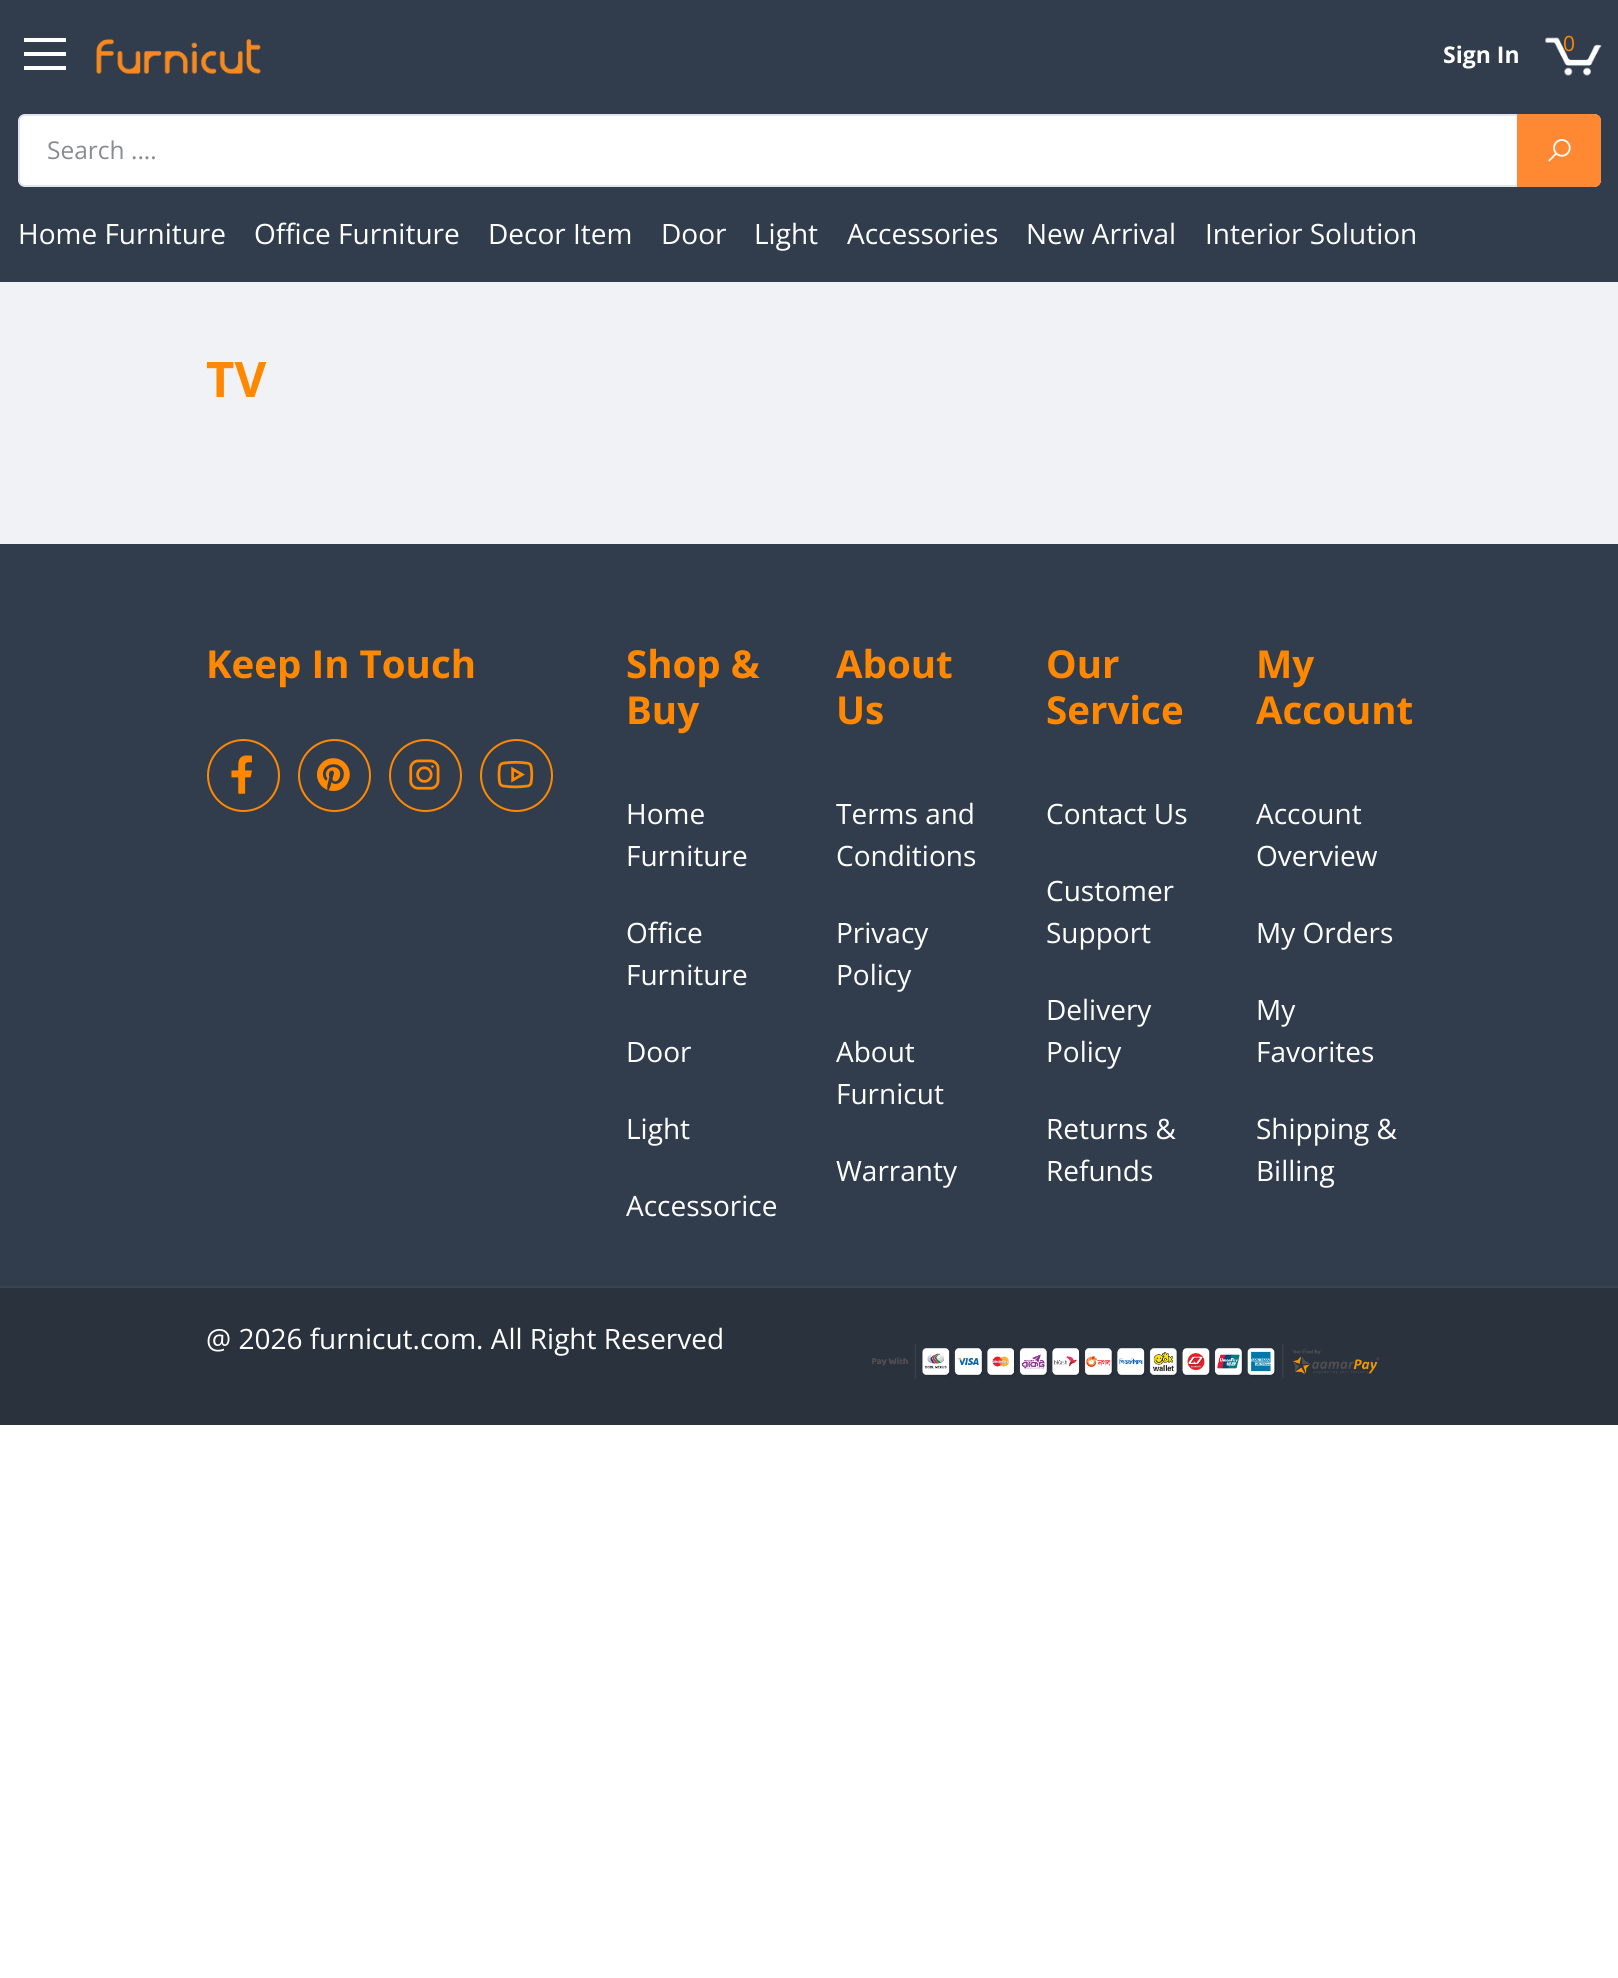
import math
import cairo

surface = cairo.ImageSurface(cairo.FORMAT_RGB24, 1618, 1978)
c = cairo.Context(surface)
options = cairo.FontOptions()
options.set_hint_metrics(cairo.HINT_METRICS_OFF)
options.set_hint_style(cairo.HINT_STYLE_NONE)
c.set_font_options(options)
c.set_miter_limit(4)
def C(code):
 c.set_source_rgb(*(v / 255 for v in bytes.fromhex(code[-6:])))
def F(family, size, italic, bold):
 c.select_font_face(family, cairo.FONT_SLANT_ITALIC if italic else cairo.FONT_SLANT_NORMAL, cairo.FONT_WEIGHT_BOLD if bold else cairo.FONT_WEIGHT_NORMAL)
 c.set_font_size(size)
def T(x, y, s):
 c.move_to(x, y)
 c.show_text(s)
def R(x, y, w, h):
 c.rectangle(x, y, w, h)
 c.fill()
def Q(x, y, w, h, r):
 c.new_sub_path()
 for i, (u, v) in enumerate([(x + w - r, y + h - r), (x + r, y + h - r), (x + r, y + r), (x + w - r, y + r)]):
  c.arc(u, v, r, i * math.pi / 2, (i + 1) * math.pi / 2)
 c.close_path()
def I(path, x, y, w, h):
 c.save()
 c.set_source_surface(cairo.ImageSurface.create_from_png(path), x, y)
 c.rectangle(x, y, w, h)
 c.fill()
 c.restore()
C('ffffff')
c.paint()
C('f0f2f5')
R(0,282,1618,262)
C('313d4d')
R(0,0,1618,282)
C('ffffff')
c.new_path()
c.move_to(24,38)
c.line_to(24,42)
c.line_to(66,42)
c.line_to(66,38)
c.close_path()
c.move_to(24,52)
c.line_to(24,56)
c.line_to(66,56)
c.line_to(66,52)
c.close_path()
c.move_to(24,66)
c.line_to(24,70)
c.line_to(66,70)
c.line_to(66,66)
c.close_path()
c.fill()
I('1.png',96,39,165,35)
F('Open Sans',23,0,1)
T(1443,63,'Sign In')
I('2.png',1545,37,57,39)
F('Open Sans',21,0,0)
C('ff8800')
T(1563,51,'0')
C('ffffff')
Q(19,115,1581,71,6)
c.fill_preserve()
C('e2e5ec')
c.stroke()
F('Open Sans',24.5,0,0)
C('898b92')
T(47,159,'Search ....')
C('ff8932')
c.new_path()
c.move_to(1517,114)
c.line_to(1594,114)
c.curve_to(1598,114,1601,117,1601,121)
c.line_to(1601,180)
c.curve_to(1601,184,1598,187,1594,187)
c.line_to(1517,187)
c.close_path()
c.fill()
I('3.png',1548,139,23,23)
F('Open Sans',28,0,0)
C('ffffff')
T(18,244,'Home Furniture')
T(254,244,'Office Furniture')
T(488,244,'Decor Item')
T(661,244,'Door')
T(754,244,'Light')
T(847,244,'Accessories')
T(1026,244,'New Arrival')
T(1205,244,'Interior Solution')
F('Open Sans',49,0,1)
C('ff8800')
T(206,397,'TV')
C('313d4d')
R(0,544,1618,742)
F('Open Sans',38.5,0,1)
C('ff8800')
T(206,678,'Keep In Touch')
c.new_path()
c.arc(243.5,775.5,35.5,0,2 * math.pi)
c.stroke()
I('4.png',231,755,21,39)
c.arc(334.5,775.5,35.5,0,2 * math.pi)
c.stroke()
I('5.png',317,758,33,33)
c.arc(425.5,775.5,35.5,0,2 * math.pi)
c.stroke()
I('6.png',409,759,31,31)
c.arc(516.5,775.5,35.5,0,2 * math.pi)
c.stroke()
I('7.png',497,760,37,29)
T(626,678,'Shop &')
T(626,724,'Buy')
F('Open Sans',28,0,0)
C('ffffff')
T(626,824,'Home')
T(626,866,'Furniture')
T(626,943,'Office')
T(626,985,'Furniture')
T(626,1062,'Door')
T(626,1139,'Light')
T(626,1216,'Accessorice')
F('Open Sans',38.5,0,1)
C('ff8800')
T(836,678,'About')
T(836,724,'Us')
F('Open Sans',28,0,0)
C('ffffff')
T(836,824,'Terms and')
T(836,866,'Conditions')
T(836,943,'Privacy')
T(836,985,'Policy')
T(836,1062,'About')
T(836,1104,'Furnicut')
T(836,1181,'Warranty')
F('Open Sans',38.5,0,1)
C('ff8800')
T(1046,678,'Our')
T(1046,724,'Service')
F('Open Sans',28,0,0)
C('ffffff')
T(1046,824,'Contact Us')
T(1046,901,'Customer')
T(1046,943,'Support')
T(1046,1020,'Delivery')
T(1046,1062,'Policy')
T(1046,1139,'Returns &')
T(1046,1181,'Refunds')
F('Open Sans',38.5,0,1)
C('ff8800')
T(1256,678,'My')
T(1256,724,'Account')
F('Open Sans',28,0,0)
C('ffffff')
T(1256,824,'Account')
T(1256,866,'Overview')
T(1256,943,'My Orders')
T(1256,1020,'My')
T(1256,1062,'Favorites')
T(1256,1139,'Shipping &')
T(1256,1181,'Billing')
C('2a323e')
R(0,1288,1618,137)
C('3b434e')
R(0,1286,1618,2)
C('ffffff')
T(206,1349,'@ 2026 furnicut.com. All Right Reserved')
I('8.png',872,1344,507,35)
surface.write_to_png('o.png')
